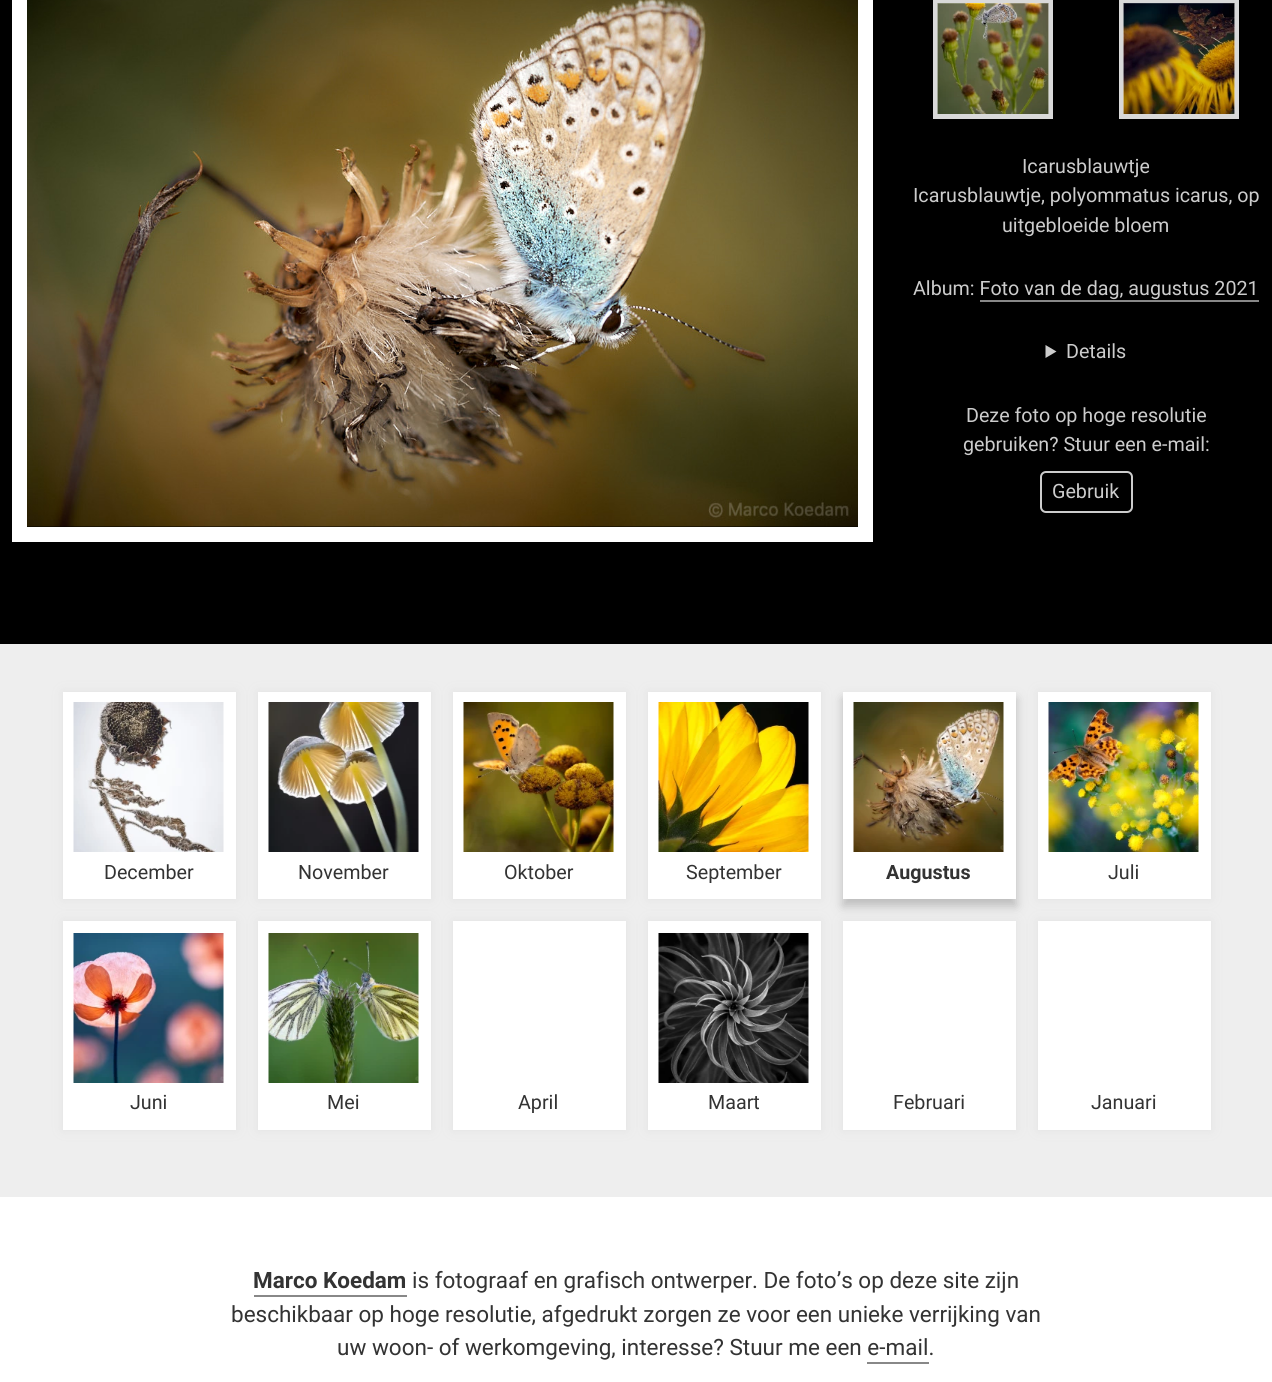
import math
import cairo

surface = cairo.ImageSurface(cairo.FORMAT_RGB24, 1272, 1382)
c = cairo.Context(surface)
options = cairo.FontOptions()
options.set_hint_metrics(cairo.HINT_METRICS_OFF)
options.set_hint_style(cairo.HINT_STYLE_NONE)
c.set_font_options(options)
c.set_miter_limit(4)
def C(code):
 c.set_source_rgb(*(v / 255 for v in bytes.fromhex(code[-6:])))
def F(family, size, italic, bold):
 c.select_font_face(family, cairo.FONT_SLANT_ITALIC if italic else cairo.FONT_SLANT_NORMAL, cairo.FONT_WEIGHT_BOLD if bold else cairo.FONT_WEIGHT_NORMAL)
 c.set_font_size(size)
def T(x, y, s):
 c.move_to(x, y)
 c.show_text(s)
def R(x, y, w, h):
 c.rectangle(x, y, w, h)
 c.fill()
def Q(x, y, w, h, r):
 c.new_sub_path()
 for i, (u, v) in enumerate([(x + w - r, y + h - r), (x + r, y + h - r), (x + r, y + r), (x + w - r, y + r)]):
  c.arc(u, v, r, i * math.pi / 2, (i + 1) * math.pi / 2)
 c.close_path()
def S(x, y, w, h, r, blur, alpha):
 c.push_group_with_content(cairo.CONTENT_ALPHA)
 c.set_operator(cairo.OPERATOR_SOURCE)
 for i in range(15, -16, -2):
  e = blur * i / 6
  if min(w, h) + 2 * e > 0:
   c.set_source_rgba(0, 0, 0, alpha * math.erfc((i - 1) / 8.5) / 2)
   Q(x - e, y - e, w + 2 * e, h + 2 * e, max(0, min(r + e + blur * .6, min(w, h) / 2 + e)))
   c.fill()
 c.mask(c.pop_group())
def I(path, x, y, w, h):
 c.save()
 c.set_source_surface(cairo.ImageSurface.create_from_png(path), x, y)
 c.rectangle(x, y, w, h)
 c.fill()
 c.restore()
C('ffffff')
c.paint()
C('000000')
R(0,0,1272,644)
c.rectangle(19.5,-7.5,846,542)
C('ffffff')
c.set_line_width(15)
c.stroke()
I('1.png',27,0,831,527)
c.rectangle(935.5,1.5,115,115)
C('d9d9d9')
c.set_line_width(5)
c.stroke()
I('2.png',937,3,112,111)
c.rectangle(1121.5,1.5,115,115)
c.stroke()
I('3.png',1123,3,112,111)
F('Roboto',19.7,0,0)
C('cccccc')
T(1022,173,'Icarusblauwtje')
T(913,202,'Icarusblauwtje, polyommatus icarus, op')
T(1002,232,'uitgebloeide bloem')
T(913,295,'Album: Foto van de dag, augustus 2021')
C('888888')
R(980,300,279,2)
C('cccccc')
c.new_path()
c.move_to(1045.5,345)
c.line_to(1056.5,351.5)
c.line_to(1045.5,358)
c.close_path()
c.fill()
T(1066,358,'Details')
T(966,422,'Deze foto op hoge resolutie')
T(963,451,'gebruiken? Stuur een e-mail:')
Q(1041,472,91,40,5)
c.set_line_width(2)
c.stroke()
T(1052,498,'Gebruik')
C('eeeeee')
R(0,644,1272,553)
C('e3e3e3')
S(63,692,173,207,0,5.5,1)
C('ffffff')
R(63,692,173,207)
I('4.png',73,702,151,150)
C('333333')
T(104,879,'December')
C('e3e3e3')
S(258,692,173,207,0,5.5,1)
C('ffffff')
R(258,692,173,207)
I('5.png',268,702,151,150)
C('333333')
T(298,879,'November')
C('e3e3e3')
S(453,692,173,207,0,5.5,1)
C('ffffff')
R(453,692,173,207)
I('6.png',463,702,151,150)
C('333333')
T(504,879,'Oktober')
C('e3e3e3')
S(648,692,173,207,0,5.5,1)
C('ffffff')
R(648,692,173,207)
I('7.png',658,702,151,150)
C('333333')
T(686,879,'September')
C('bbbbbb')
S(843,699,173,207,0,5.5,1)
C('ffffff')
R(843,692,173,207)
I('8.png',853,702,151,150)
F('Roboto',19.7,0,1)
C('333333')
T(886,879,'Augustus')
C('e3e3e3')
S(1038,692,173,207,0,5.5,1)
C('ffffff')
R(1038,692,173,207)
I('9.png',1048,702,151,150)
F('Roboto',19.7,0,0)
C('333333')
T(1108,879,'Juli')
C('e3e3e3')
S(63,921,173,209,0,5.5,1)
C('ffffff')
R(63,921,173,209)
I('10.png',73,933,151,150)
C('333333')
T(130,1109,'Juni')
C('e3e3e3')
S(258,921,173,209,0,5.5,1)
C('ffffff')
R(258,921,173,209)
I('11.png',268,933,151,150)
C('333333')
T(327,1109,'Mei')
C('e3e3e3')
S(453,921,173,209,0,5.5,1)
C('ffffff')
R(453,921,173,209)
C('333333')
T(518,1109,'April')
C('e3e3e3')
S(648,921,173,209,0,5.5,1)
C('ffffff')
R(648,921,173,209)
I('12.png',658,933,151,150)
C('333333')
T(708,1109,'Maart')
C('e3e3e3')
S(843,921,173,209,0,5.5,1)
C('ffffff')
R(843,921,173,209)
C('333333')
T(893,1109,'Februari')
C('e3e3e3')
S(1038,921,173,209,0,5.5,1)
C('ffffff')
R(1038,921,173,209)
C('333333')
T(1091,1109,'Januari')
F('Roboto',22.5,0,1)
T(253,1288,'Marco Koedam')
C('888888')
R(254,1295,153,2)
F('Roboto',22.5,0,0)
C('333333')
T(412,1288,'is fotograaf en grafisch ontwerper. De foto’s op deze site zijn')
T(231,1322,'beschikbaar op hoge resolutie, afgedrukt zorgen ze voor een unieke verrijking van')
T(337,1355,'uw woon- of werkomgeving, interesse? Stuur me een e-mail.')
C('888888')
R(867,1362,62,2)
surface.write_to_png('o.png')
